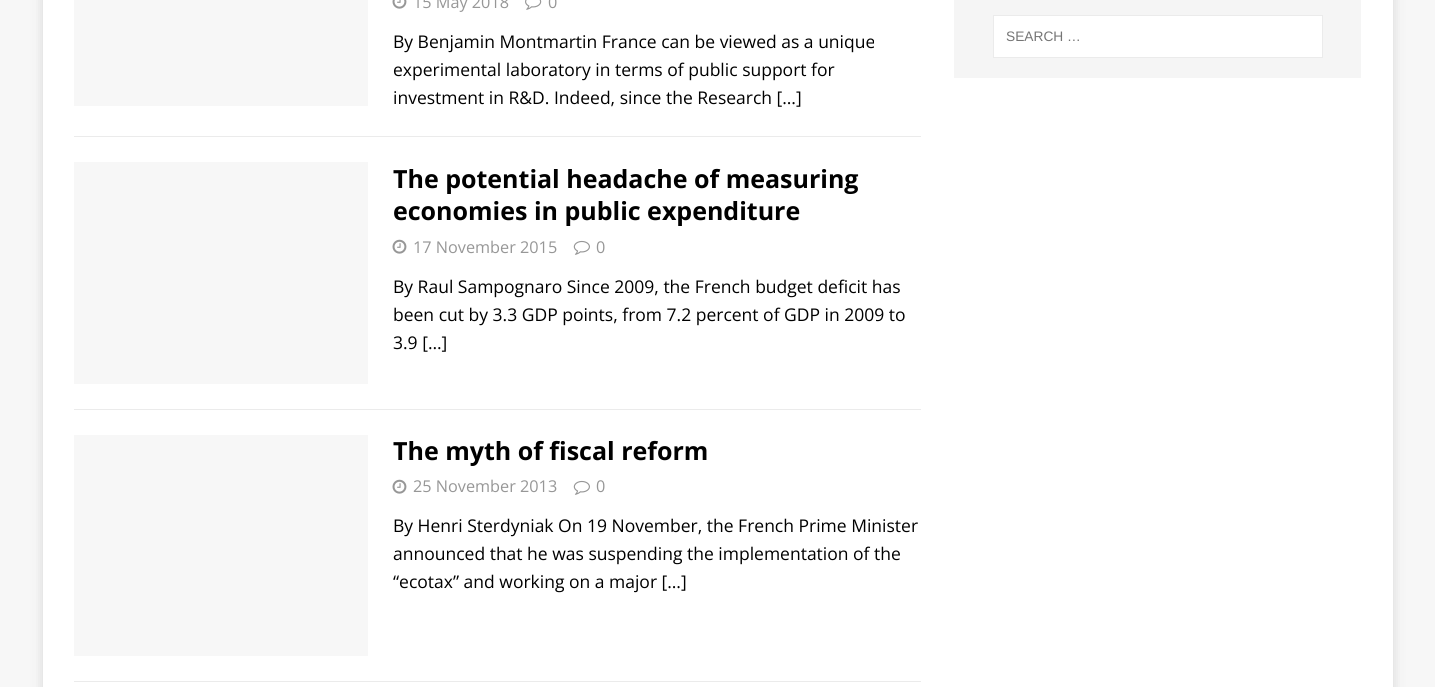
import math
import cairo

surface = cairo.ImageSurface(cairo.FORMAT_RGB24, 1435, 687)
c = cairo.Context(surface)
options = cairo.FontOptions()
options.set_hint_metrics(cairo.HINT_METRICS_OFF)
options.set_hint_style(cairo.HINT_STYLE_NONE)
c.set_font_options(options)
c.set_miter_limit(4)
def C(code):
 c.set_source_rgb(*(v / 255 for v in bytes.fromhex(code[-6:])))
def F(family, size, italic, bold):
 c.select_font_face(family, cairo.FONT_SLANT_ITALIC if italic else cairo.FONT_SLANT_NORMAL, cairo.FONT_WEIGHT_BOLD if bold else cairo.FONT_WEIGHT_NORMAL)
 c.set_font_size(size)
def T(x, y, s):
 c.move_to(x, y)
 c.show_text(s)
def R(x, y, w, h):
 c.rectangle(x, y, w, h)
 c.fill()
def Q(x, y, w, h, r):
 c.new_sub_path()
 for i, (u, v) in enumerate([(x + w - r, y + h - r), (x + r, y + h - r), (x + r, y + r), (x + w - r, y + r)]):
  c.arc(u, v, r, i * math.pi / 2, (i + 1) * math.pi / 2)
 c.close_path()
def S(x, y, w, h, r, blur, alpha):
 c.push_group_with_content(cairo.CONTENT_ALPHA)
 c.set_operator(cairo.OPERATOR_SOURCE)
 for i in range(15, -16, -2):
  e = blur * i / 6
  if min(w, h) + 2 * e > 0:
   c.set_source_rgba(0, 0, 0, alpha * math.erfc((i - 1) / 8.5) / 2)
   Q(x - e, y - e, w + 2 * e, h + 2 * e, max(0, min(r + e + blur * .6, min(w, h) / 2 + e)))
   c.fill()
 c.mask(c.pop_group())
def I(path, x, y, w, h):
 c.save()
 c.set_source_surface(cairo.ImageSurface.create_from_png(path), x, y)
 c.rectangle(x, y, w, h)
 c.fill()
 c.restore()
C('f7f7f7')
c.paint()
C('323232')
S(43,-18,1350,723,0,6,.17)
C('ffffff')
R(43,0,1350,687)
C('ebebeb')
R(74,136,847,1)
C('f7f7f7')
R(74,0,294,106)
I('1.png',392,0,15,9)
F('Open Sans',16.25,0,0)
C('979797')
T(413,8,'15 May 2018')
I('2.png',525,0,17,10)
T(548,8,'0')
F('Open Sans',17.5,0,0)
C('000000')
T(393,48,'By Benjamin Montmartin France can be viewed as a unique')
T(393,76,'experimental laboratory in terms of public support for')
T(393,104,'investment in R&D. Indeed, since the Research […]')
C('ebebeb')
R(74,409,847,1)
C('f7f7f7')
R(74,162,294,222)
F('Open Sans',25,0,1)
C('000000')
T(393,188,'The potential headache of measuring')
T(393,220,'economies in public expenditure')
I('3.png',392,239,15,15)
F('Open Sans',16.25,0,0)
C('979797')
T(413,253,'17 November 2015')
I('4.png',573,240,17,15)
T(596,253,'0')
F('Open Sans',17.5,0,0)
C('000000')
T(393,293,'By Raul Sampognaro Since 2009, the French budget deficit has')
T(393,321,'been cut by 3.3 GDP points, from 7.2 percent of GDP in 2009 to')
T(393,349,'3.9 […]')
C('ebebeb')
R(74,681,847,1)
C('f7f7f7')
R(74,435,294,221)
F('Open Sans',25,0,1)
C('000000')
T(393,460,'The myth of fiscal reform')
I('3.png',392,479,15,15)
F('Open Sans',16.25,0,0)
C('979797')
T(413,492,'25 November 2013')
I('4.png',573,480,17,15)
T(596,492,'0')
F('Open Sans',17.5,0,0)
C('000000')
T(393,532,'By Henri Sterdyniak On 19 November, the French Prime Minister')
T(393,560,'announced that he was suspending the implementation of the')
T(393,588,'“ecotax” and working on a major […]')
C('f5f5f5')
R(954,0,407,78)
C('ffffff')
c.rectangle(993.5,15.5,329,42)
c.fill_preserve()
C('ebebeb')
c.set_line_width(1)
c.stroke()
F('Liberation Sans',13.75,0,0)
C('757575')
T(1006,41,'SEARCH …')
surface.write_to_png('o.png')
